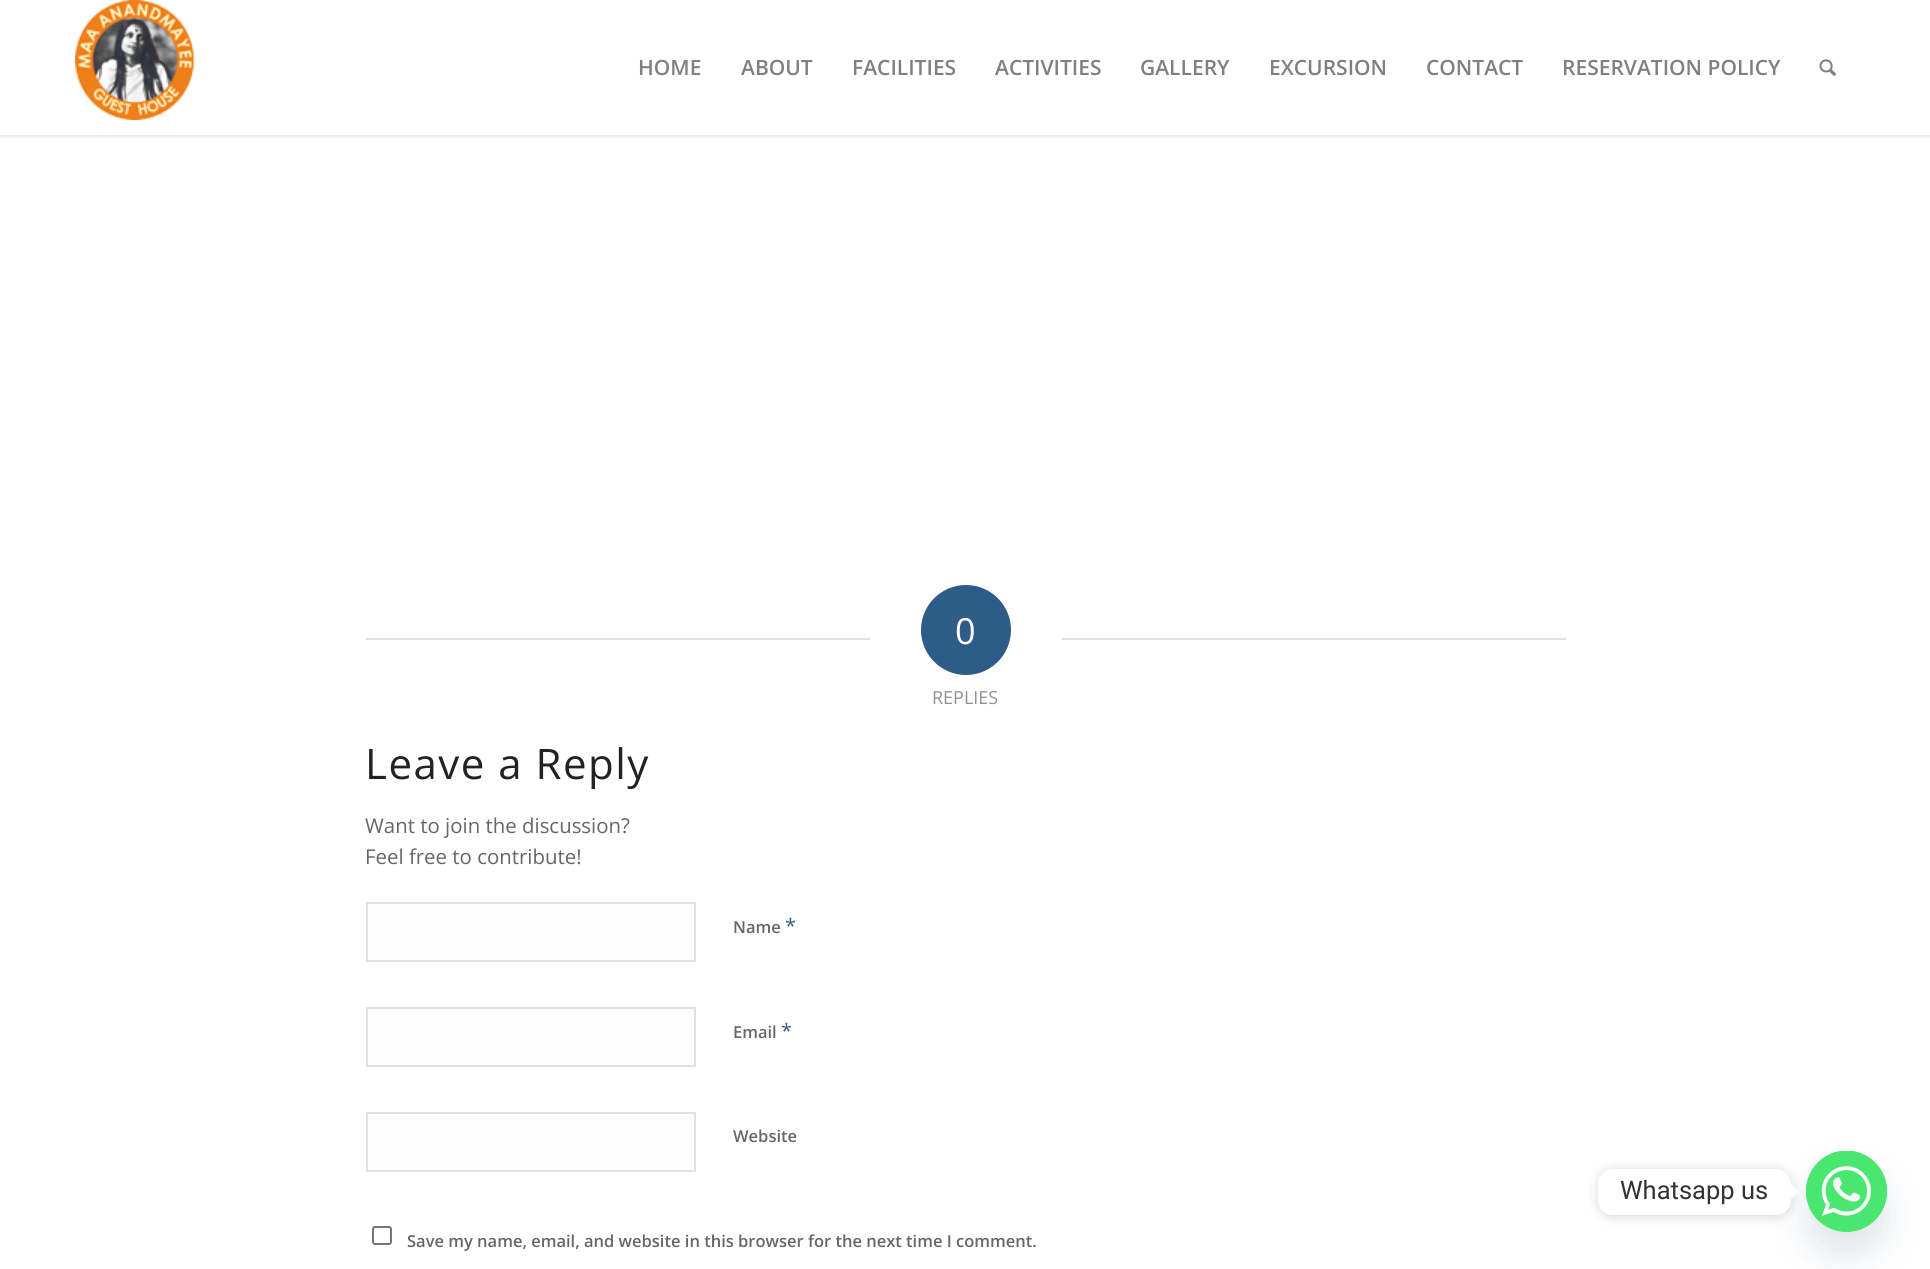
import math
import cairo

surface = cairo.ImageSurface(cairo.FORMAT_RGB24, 1930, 1269)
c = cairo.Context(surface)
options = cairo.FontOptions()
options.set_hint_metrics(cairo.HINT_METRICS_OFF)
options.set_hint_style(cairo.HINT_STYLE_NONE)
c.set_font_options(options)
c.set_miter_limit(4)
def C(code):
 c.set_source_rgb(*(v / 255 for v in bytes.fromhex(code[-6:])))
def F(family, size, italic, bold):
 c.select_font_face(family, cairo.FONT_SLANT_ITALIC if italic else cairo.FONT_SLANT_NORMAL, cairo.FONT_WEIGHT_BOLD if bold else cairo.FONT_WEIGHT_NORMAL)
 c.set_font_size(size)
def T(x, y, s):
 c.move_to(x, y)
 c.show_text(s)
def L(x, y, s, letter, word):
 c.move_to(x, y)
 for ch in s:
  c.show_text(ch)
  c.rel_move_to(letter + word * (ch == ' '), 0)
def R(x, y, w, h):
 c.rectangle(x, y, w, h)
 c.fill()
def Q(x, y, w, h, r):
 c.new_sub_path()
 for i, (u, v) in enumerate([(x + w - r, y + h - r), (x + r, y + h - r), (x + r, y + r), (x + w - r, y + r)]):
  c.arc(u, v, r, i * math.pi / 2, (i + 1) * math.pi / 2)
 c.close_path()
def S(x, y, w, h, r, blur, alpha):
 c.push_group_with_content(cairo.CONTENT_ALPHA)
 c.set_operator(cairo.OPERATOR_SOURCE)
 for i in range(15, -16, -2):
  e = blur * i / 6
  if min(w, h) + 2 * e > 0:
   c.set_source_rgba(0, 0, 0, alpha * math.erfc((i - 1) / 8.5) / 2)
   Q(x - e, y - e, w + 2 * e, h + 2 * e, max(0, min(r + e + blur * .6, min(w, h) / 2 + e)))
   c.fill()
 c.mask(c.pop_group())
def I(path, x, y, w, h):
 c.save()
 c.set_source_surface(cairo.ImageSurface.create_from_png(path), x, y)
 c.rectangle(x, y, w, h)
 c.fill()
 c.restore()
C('ffffff')
c.paint()
c.save()
c.rectangle(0,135,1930,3)
c.clip()
C('000000')
S(-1,-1,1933,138,0,1.5,.1)
c.restore()
I('1.png',75,0,120,120)
F('Open Sans SemiBold',21,0,0)
C('808080')
T(638,75,'HOME')
T(741,75,'ABOUT')
T(852,75,'FACILITIES')
T(995,75,'ACTIVITIES')
T(1140,75,'GALLERY')
T(1269,75,'EXCURSION')
T(1426,75,'CONTACT')
T(1562,75,'RESERVATION POLICY')
I('2.png',1819,59,17,17)
C('e1e1e1')
R(366,638,504,2)
C('2d5c88')
c.arc(966,630,45,0,2 * math.pi)
c.fill()
F('Open Sans',36,0,0)
C('ffffff')
T(955,644,'0')
C('e1e1e1')
R(1062,638,504,2)
F('Open Sans',18,0,0)
C('919191')
T(932,704,'REPLIES')
F('Open Sans',42,0,0)
C('222222')
L(365,779,'Leave a Reply',1.5,0)
F('Open Sans',20.4,0,0)
C('666666')
T(365,833,'Want to join the discussion?')
T(365,864,'Feel free to contribute!')
C('fcfcfc')
c.rectangle(367,903,328,58)
c.fill_preserve()
C('e1e1e1')
c.stroke()
F('Open Sans SemiBold',16.5,0,0)
C('666666')
T(733,933,'Name')
F('Open Sans',20,0,0)
C('2d5c88')
T(785,933,'*')
C('fcfcfc')
c.rectangle(367,1008,328,58)
c.fill_preserve()
C('e1e1e1')
c.stroke()
F('Open Sans SemiBold',16.5,0,0)
C('666666')
T(733,1038,'Email')
F('Open Sans',20,0,0)
C('2d5c88')
T(781,1038,'*')
C('fcfcfc')
c.rectangle(367,1113,328,58)
c.fill_preserve()
C('e1e1e1')
c.stroke()
F('Open Sans SemiBold',16.5,0,0)
C('666666')
T(733,1142,'Website')
Q(373,1227,18,17,2)
C('767676')
c.stroke()
C('666666')
T(407,1247,'Save my name, email, and website in this browser for the next time I comment.')
C('49687e')
S(1806,1175,81,81,40.5,18,.16)
C('49e670')
c.arc(1846.5,1191.5,40.5,0,2 * math.pi)
c.fill()
I('3.png',1806,1151,81,81)
C('000000')
S(1598,1170,193,47,15,6,.15)
C('ffffff')
Q(1598,1169,193,46,15)
c.fill()
F('Roboto',25.5,0,0)
C('333333')
T(1620,1199,'Whatsapp us')
C('ffffff')
c.new_path()
c.move_to(1791,1199)
c.line_to(1791,1184)
c.line_to(1798.5,1192)
c.close_path()
c.fill()
surface.write_to_png('o.png')
